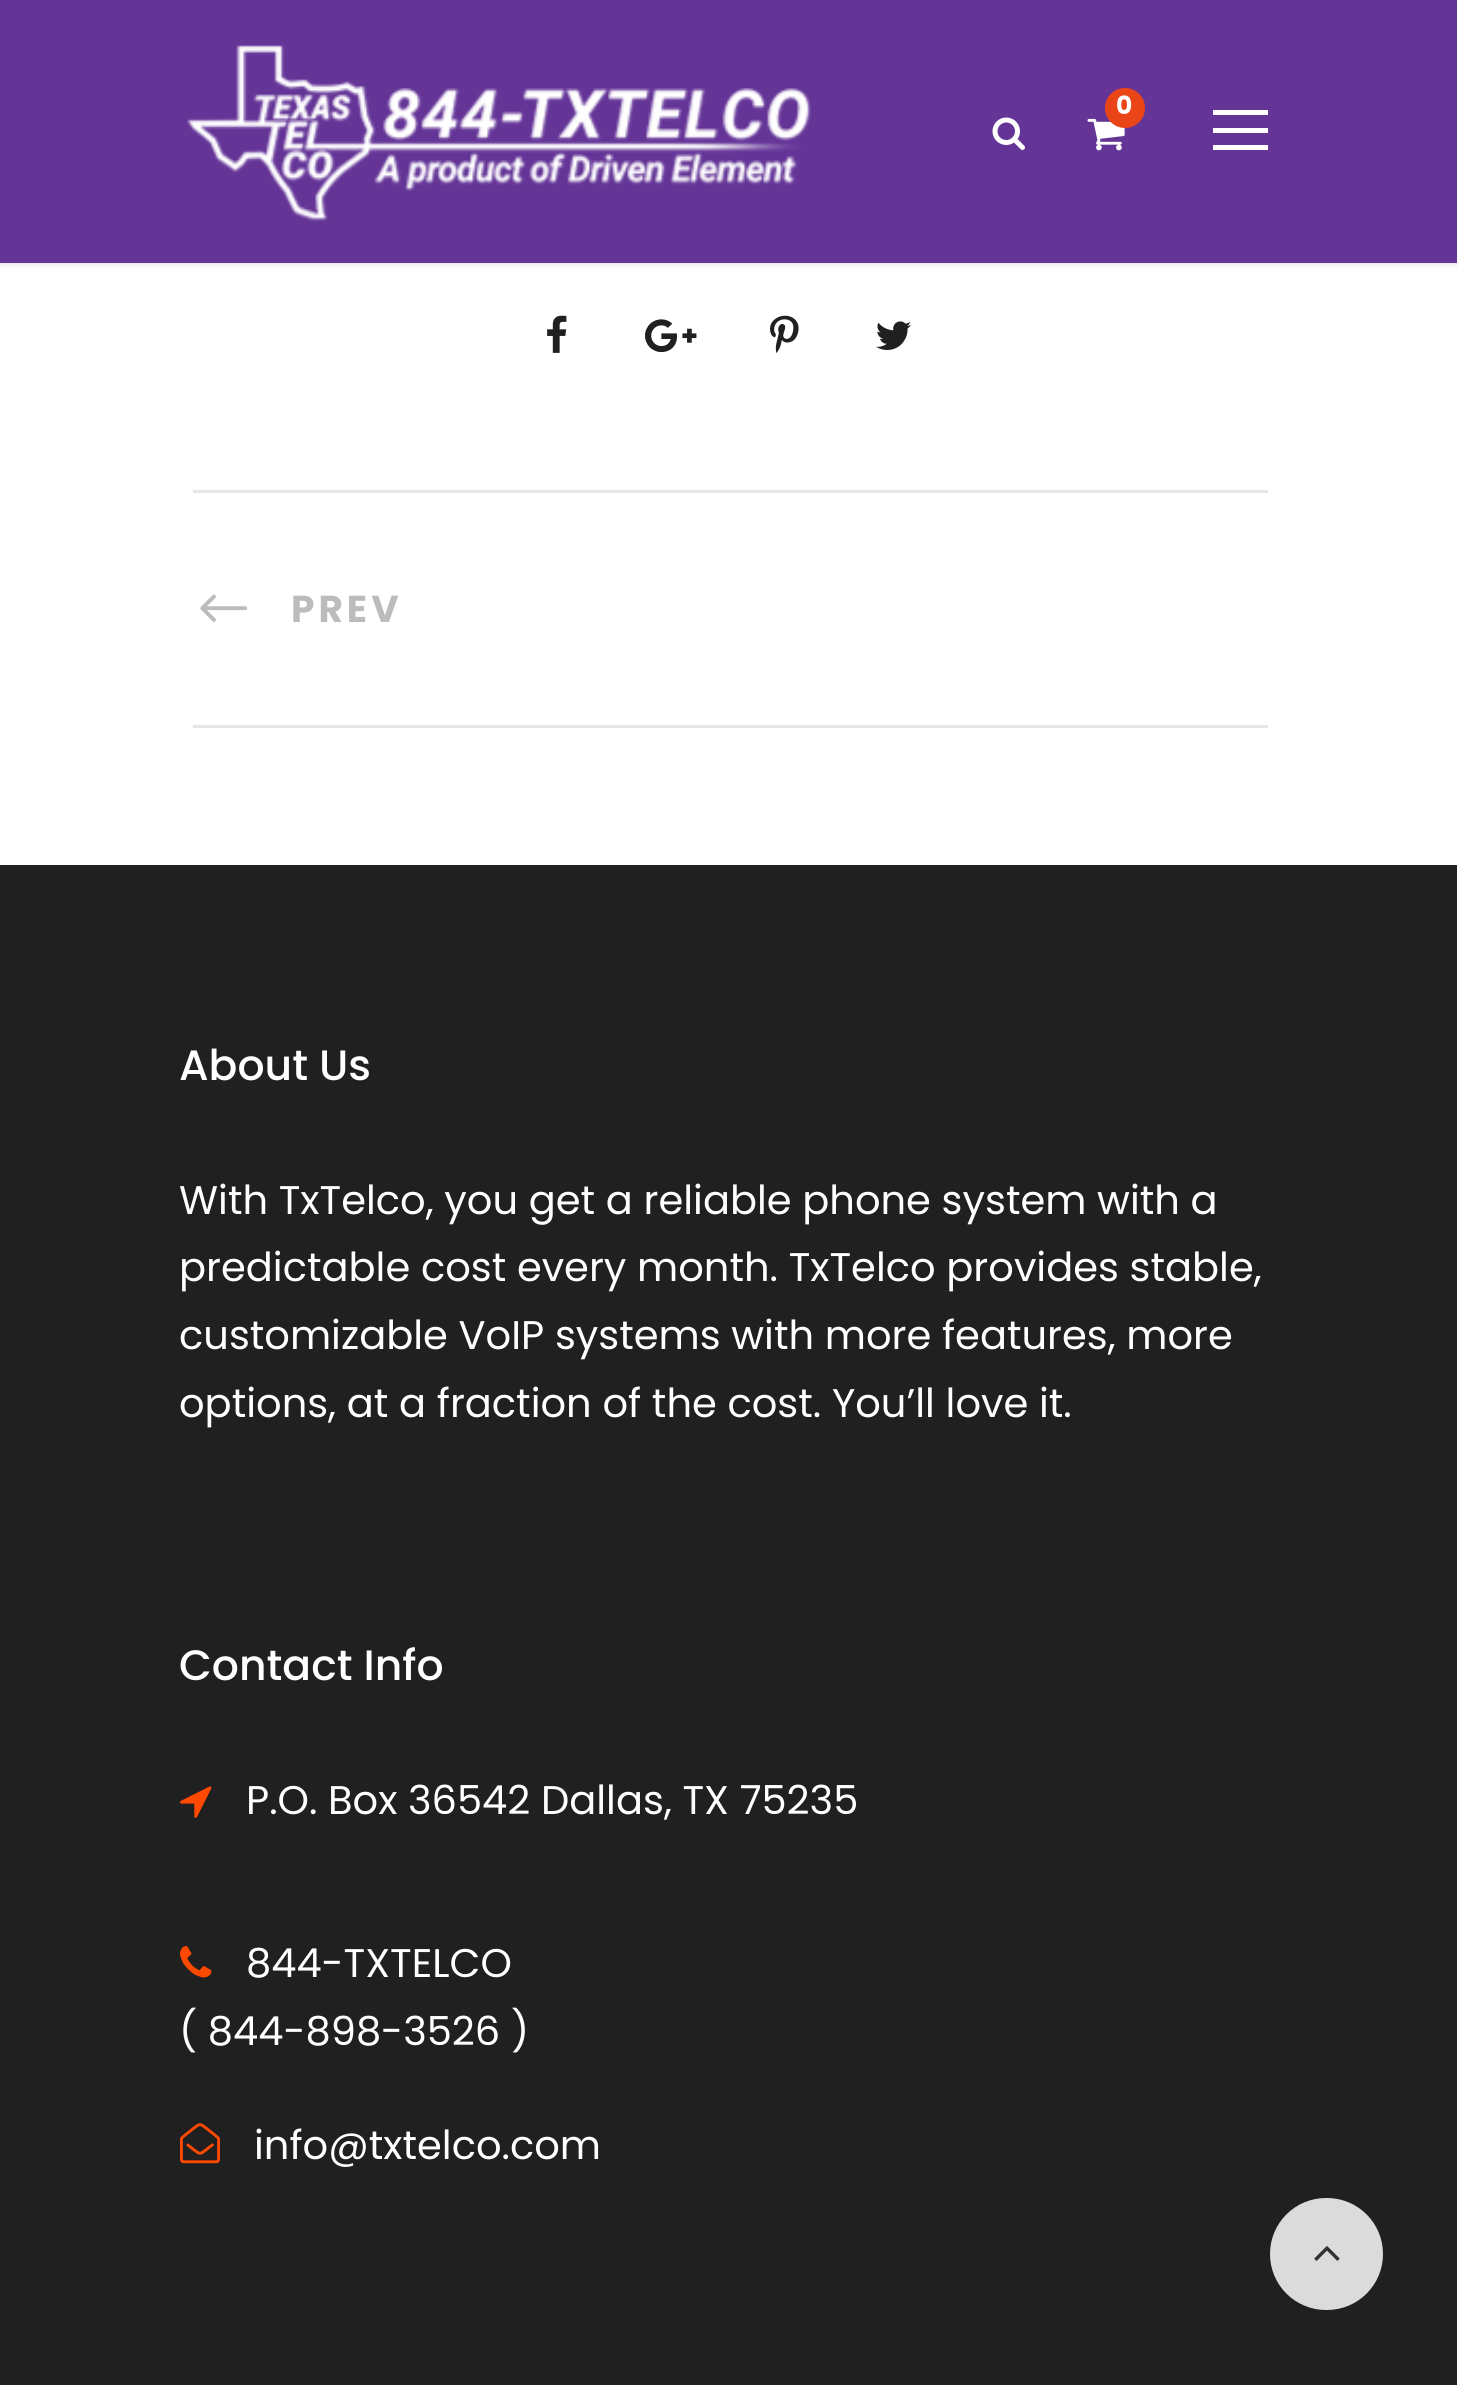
import math
import cairo

surface = cairo.ImageSurface(cairo.FORMAT_RGB24, 1457, 2385)
c = cairo.Context(surface)
options = cairo.FontOptions()
options.set_hint_metrics(cairo.HINT_METRICS_OFF)
options.set_hint_style(cairo.HINT_STYLE_NONE)
c.set_font_options(options)
c.set_miter_limit(4)
def C(code):
 c.set_source_rgb(*(v / 255 for v in bytes.fromhex(code[-6:])))
def F(family, size, italic, bold):
 c.select_font_face(family, cairo.FONT_SLANT_ITALIC if italic else cairo.FONT_SLANT_NORMAL, cairo.FONT_WEIGHT_BOLD if bold else cairo.FONT_WEIGHT_NORMAL)
 c.set_font_size(size)
def T(x, y, s):
 c.move_to(x, y)
 c.show_text(s)
def L(x, y, s, letter, word):
 c.move_to(x, y)
 for ch in s:
  c.show_text(ch)
  c.rel_move_to(letter + word * (ch == ' '), 0)
def R(x, y, w, h):
 c.rectangle(x, y, w, h)
 c.fill()
def Q(x, y, w, h, r):
 c.new_sub_path()
 for i, (u, v) in enumerate([(x + w - r, y + h - r), (x + r, y + h - r), (x + r, y + r), (x + w - r, y + r)]):
  c.arc(u, v, r, i * math.pi / 2, (i + 1) * math.pi / 2)
 c.close_path()
def S(x, y, w, h, r, blur, alpha):
 c.push_group_with_content(cairo.CONTENT_ALPHA)
 c.set_operator(cairo.OPERATOR_SOURCE)
 for i in range(15, -16, -2):
  e = blur * i / 6
  if min(w, h) + 2 * e > 0:
   c.set_source_rgba(0, 0, 0, alpha * math.erfc((i - 1) / 8.5) / 2)
   Q(x - e, y - e, w + 2 * e, h + 2 * e, max(0, min(r + e + blur * .6, min(w, h) / 2 + e)))
   c.fill()
 c.mask(c.pop_group())
def I(path, x, y, w, h):
 c.save()
 c.set_source_surface(cairo.ImageSurface.create_from_png(path), x, y)
 c.rectangle(x, y, w, h)
 c.fill()
 c.restore()
C('ffffff')
c.paint()
C('000000')
S(0,3,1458,262,0,2.5,.1)
C('643597')
R(0,0,1457,263)
I('1.png',187,45,624,176)
I('2.png',1087,118,38,33)
C('ea4517')
c.arc(1125,108,20,0,2 * math.pi)
c.fill()
F('Poppins',25,0,1)
C('ffffff')
T(1116,114,'0')
I('3.png',992,117,33,33)
R(1213,110,55,5)
R(1213,128,55,5)
R(1213,145,55,5)
I('4.png',547,315,20,38)
I('5.png',645,319,52,34)
I('6.png',770,315,29,38)
I('7.png',876,321,35,29)
C('e6e6e6')
R(193,490,1075,3)
R(193,725,1075,3)
I('8.png',200,594,48,28)
F('Poppins',37.5,0,1)
C('bcbcbc')
L(291,622,'PREV',4,0)
C('202020')
R(0,865,1457,1520)
F('Poppins Medium',42.5,0,0)
C('ffffff')
T(179,1080,'About Us')
F('Poppins',40,0,0)
T(179,1214,'With TxTelco, you get a reliable phone system with a')
T(179,1281,'predictable cost every month. TxTelco provides stable,')
T(179,1349,'customizable VoIP systems with more features, more')
T(179,1417,'options, at a fraction of the cost. You’ll love it.')
F('Poppins Medium',42.5,0,0)
T(179,1680,'Contact Info')
I('9.png',180,1786,32,32)
F('Poppins',40,0,0)
T(246,1814,'P.O. Box 36542 Dallas, TX 75235')
I('10.png',180,1946,32,32)
T(246,1977,'844-TXTELCO')
T(179,2045,'( 844-898-3526 )')
I('11.png',180,2123,40,41)
T(254,2159,'info@txtelco.com')
C('dbdbdb')
Q(1270,2198,113,112,56)
c.fill()
I('12.png',1314,2246,26,15)
surface.write_to_png('o.png')
